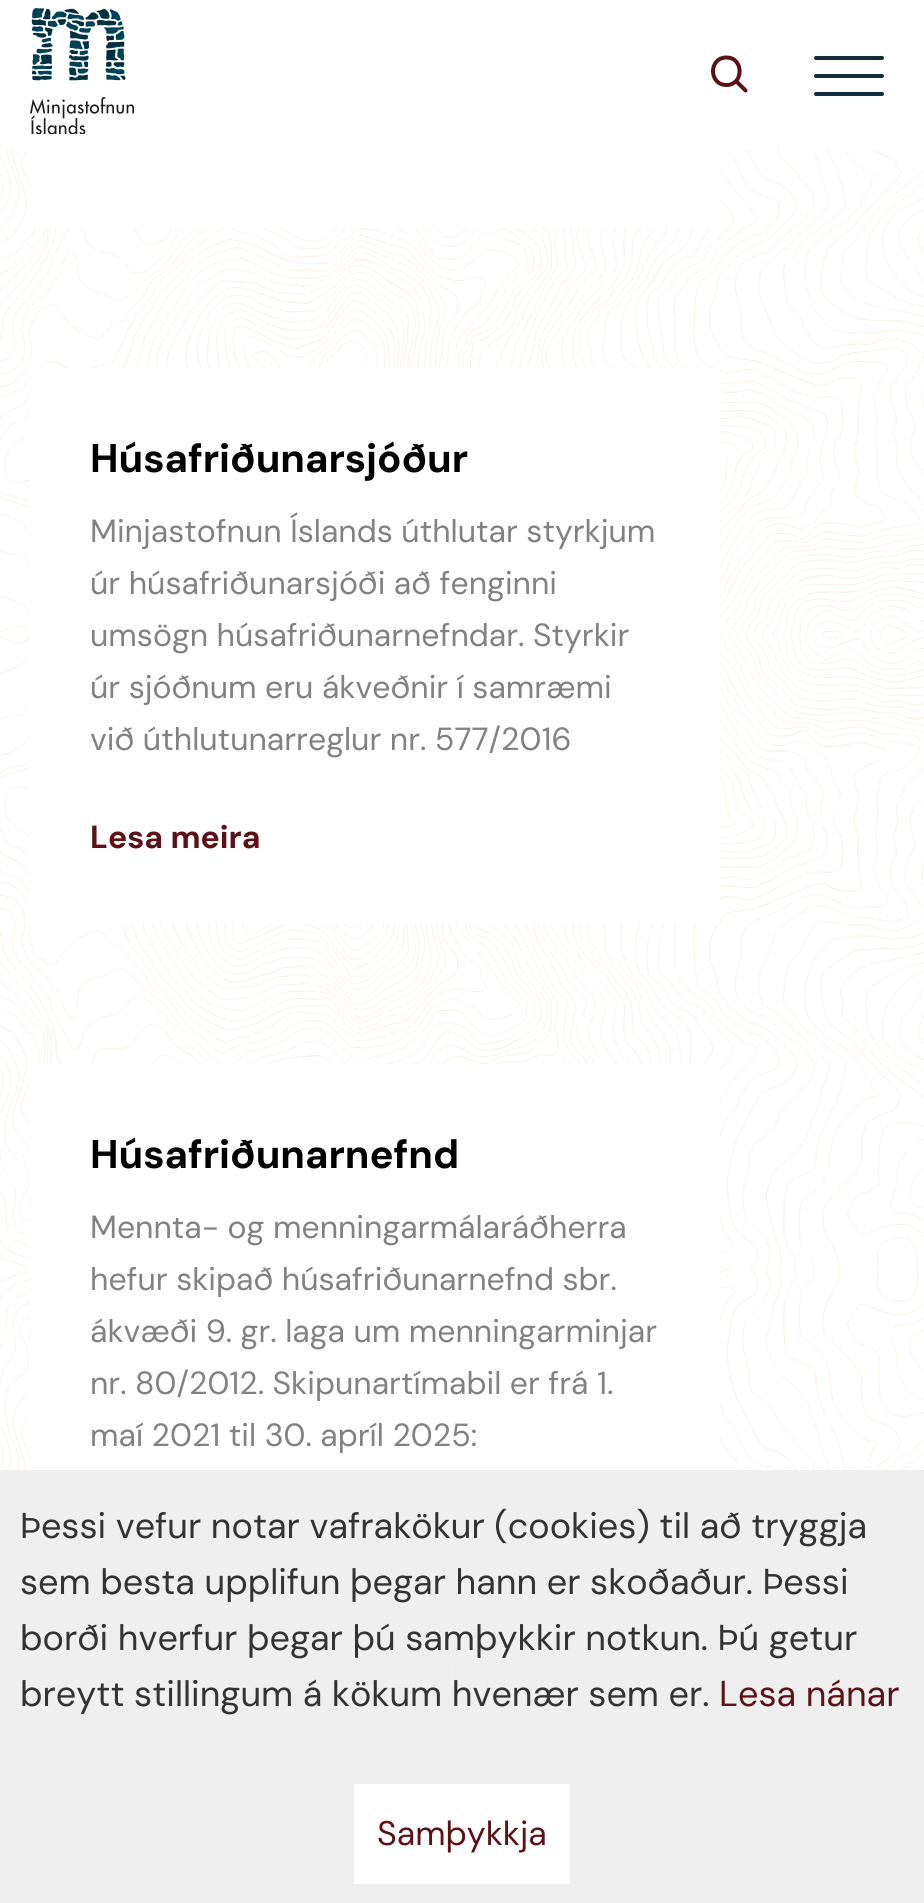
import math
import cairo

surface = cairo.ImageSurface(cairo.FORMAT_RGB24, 924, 1903)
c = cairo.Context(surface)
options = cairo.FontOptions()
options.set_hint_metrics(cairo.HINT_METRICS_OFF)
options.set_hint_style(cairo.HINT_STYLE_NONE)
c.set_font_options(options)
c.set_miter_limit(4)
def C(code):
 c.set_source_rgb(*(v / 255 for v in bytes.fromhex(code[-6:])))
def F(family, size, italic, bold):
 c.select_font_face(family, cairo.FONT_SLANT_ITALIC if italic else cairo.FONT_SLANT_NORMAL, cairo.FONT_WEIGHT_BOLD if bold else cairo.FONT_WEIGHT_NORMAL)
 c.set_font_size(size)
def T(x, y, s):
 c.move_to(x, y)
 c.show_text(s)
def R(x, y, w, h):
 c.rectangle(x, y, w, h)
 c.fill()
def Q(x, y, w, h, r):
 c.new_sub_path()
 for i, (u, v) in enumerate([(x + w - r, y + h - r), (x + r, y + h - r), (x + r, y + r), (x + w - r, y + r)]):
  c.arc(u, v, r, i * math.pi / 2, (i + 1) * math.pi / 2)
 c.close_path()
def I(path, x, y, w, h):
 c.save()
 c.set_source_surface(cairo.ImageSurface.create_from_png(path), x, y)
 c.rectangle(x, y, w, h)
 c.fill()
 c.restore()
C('ffffff')
c.paint()
I('1.png',30,8,104,126)
c.new_path()
c.move_to(726.5,85)
c.curve_to(744,85,744,57.5,726.5,57.5)
c.curve_to(708.5,57.5,708.5,85,726.5,85)
c.close_path()
c.move_to(745.5,90.5)
c.line_to(736,81)
C('5d1117')
c.set_line_width(4)
c.set_line_cap(cairo.LINE_CAP_ROUND)
c.set_line_join(cairo.LINE_JOIN_ROUND)
c.stroke()
C('122d3a')
Q(814,56,70,4,2)
c.fill()
Q(814,74,70,4,2)
c.fill()
Q(814,92,70,4,2)
c.fill()
I('2.png',0,150,924,1753)
C('ffffff')
R(30,150,690,78)
R(30,368,690,556)
F('DM Sans',40,0,1)
C('000000')
T(90,472,'Húsafriðunarsjóður')
F('DM Sans',32,0,0)
C('828282')
T(90,542,'Minjastofnun Íslands úthlutar styrkjum')
T(90,594,'úr húsafriðunarsjóði að fenginni')
T(90,646,'umsögn húsafriðunarnefndar. Styrkir')
T(90,698,'úr sjóðnum eru ákveðnir í samræmi')
T(90,750,'við úthlutunarreglur nr. 577/2016')
F('DM Sans',32,0,1)
C('5d1117')
T(90,848,'Lesa meira')
C('ffffff')
R(30,1064,690,556)
F('DM Sans',40,0,1)
C('000000')
T(90,1168,'Húsafriðunarnefnd')
F('DM Sans',32,0,0)
C('828282')
T(90,1238,'Mennta- og menningarmálaráðherra')
T(90,1290,'hefur skipað húsafriðunarnefnd sbr.')
T(90,1342,'ákvæði 9. gr. laga um menningarminjar')
T(90,1394,'nr. 80/2012. Skipunartímabil er frá 1.')
T(90,1446,'maí 2021 til 30. apríl 2025:')
C('ffffff')
R(30,1760,690,143)
c.set_source_rgba(0.933,0.933,0.933,0.9)
R(0,1470,924,433)
F('DM Sans',36,0,0)
C('333333')
T(20,1538,'Þessi vefur notar vafrakökur (cookies) til að tryggja')
T(20,1594,'sem besta upplifun þegar hann er skoðaður. Þessi')
T(20,1650,'borði hverfur þegar þú samþykkir notkun. Þú getur')
T(20,1706,'breytt stillingum á kökum hvenær sem er.')
C('5d1117')
T(719,1706,'Lesa nánar')
C('ffffff')
R(354,1784,216,100)
F('DM Sans',34,0,0)
C('5d1117')
T(377,1845,'Samþykkja')
surface.write_to_png('o.png')
